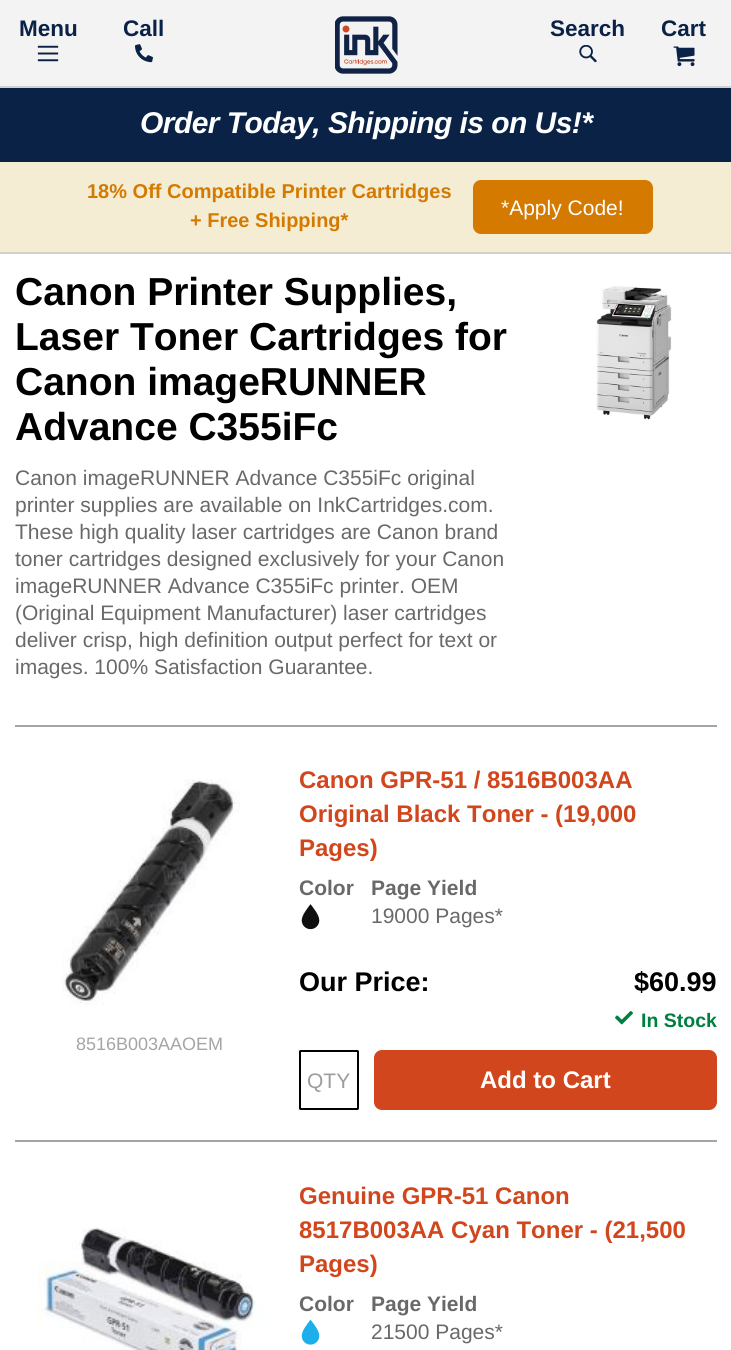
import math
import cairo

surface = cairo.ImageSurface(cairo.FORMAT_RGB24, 731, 1350)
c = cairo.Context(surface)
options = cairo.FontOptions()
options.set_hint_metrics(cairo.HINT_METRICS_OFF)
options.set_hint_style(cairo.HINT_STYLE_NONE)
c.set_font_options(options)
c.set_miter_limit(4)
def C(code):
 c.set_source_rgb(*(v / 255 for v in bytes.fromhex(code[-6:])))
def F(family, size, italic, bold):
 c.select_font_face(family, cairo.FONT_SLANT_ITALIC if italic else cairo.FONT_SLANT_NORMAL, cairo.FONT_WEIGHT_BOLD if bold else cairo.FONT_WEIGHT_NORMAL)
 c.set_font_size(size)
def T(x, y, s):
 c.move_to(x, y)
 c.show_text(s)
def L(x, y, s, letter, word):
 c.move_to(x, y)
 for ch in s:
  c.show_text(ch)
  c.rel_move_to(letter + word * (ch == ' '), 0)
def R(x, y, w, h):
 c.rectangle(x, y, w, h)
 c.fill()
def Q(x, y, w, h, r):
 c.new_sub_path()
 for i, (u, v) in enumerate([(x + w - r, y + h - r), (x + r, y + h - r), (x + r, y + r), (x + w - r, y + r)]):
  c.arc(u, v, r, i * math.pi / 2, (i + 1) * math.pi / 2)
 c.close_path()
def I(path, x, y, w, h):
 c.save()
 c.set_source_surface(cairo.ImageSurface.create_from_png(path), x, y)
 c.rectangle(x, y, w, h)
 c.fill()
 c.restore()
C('ffffff')
c.paint()
C('d1d1d1')
R(0,252,731,2)
C('f3f3f3')
R(0,0,731,86)
F('Liberation Sans',22.5,0,1)
C('0a2246')
T(19,36,'Menu')
I('1.png',37,45,22,17)
T(123,36,'Call')
I('2.png',135,44,18,19)
I('3.png',335,16,63,58)
T(550,36,'Search')
I('4.png',579,45,18,18)
C('d1d1d1')
R(0,86,731,2)
C('0a2246')
T(661,36,'Cart')
I('5.png',673,46,22,21)
R(0,88,731,74)
F('Liberation Sans',30,1,1)
C('ffffff')
L(140,133,'Order Today, Shipping is on Us!*',-.55,0)
C('f4edd4')
R(0,162,731,90)
F('Liberation Sans',20,0,1)
C('d47a01')
T(87,198,'18% Off Compatible Printer Cartridges')
T(190,227,'+ Free Shipping*')
Q(473,180,180,54,8)
c.fill()
F('Liberation Sans',21,0,0)
C('ffffff')
T(501,215,'*Apply Code!')
F('Liberation Sans',39,0,1)
C('000000')
T(15,305,'Canon Printer Supplies,')
T(15,350,'Laser Toner Cartridges for')
T(15,395,'Canon imageRUNNER')
T(15,440,'Advance C355iFc')
F('Liberation Sans',21,0,0)
C('696969')
T(15,485,'Canon imageRUNNER Advance C355iFc original')
T(15,512,'printer supplies are available on InkCartridges.com.')
T(15,539,'These high quality laser cartridges are Canon brand')
T(15,566,'toner cartridges designed exclusively for your Canon')
T(15,593,'imageRUNNER Advance C355iFc printer. OEM')
T(15,620,'(Original Equipment Manufacturer) laser cartridges')
T(15,647,'deliver crisp, high definition output perfect for text or')
T(15,674,'images. 100% Satisfaction Guarantee.')
I('6.png',596,286,76,134)
C('a5a5a5')
R(15,725,702,2)
I('7.png',62,779,178,226)
F('Liberation Sans',18,0,0)
T(76,1050,'8516B003AAOEM')
F('Liberation Sans',24,0,1)
C('d1461c')
T(299,788,'Canon GPR-51 / 8516B003AA')
T(299,822,'Original Black Toner - (19,000')
T(299,856,'Pages)')
F('Liberation Sans',21,0,1)
C('696969')
T(299,895,'Color')
I('8.png',301,904,19,26)
T(371,895,'Page Yield')
F('Liberation Sans',21,0,0)
T(371,923,'19000 Pages*')
F('Liberation Sans',27,0,1)
C('000000')
T(299,991,'Our Price:')
T(634,991,'$60.99')
I('9.png',615,1011,18,14)
F('Liberation Sans',19.5,0,1)
C('008040')
T(641,1027,'In Stock')
Q(300,1051,58,58,.5)
C('000000')
c.stroke()
F('Liberation Sans',21,0,0)
C('9c9c9c')
T(307,1088,'QTY')
C('d1461c')
Q(375,1051,341,58,7)
c.fill_preserve()
c.stroke()
F('Liberation Sans',24,0,1)
C('ffffff')
T(480,1088,'Add to Cart')
C('a5a5a5')
R(15,1140,702,2)
I('10.png',37,1227,226,123)
C('d1461c')
T(299,1204,'Genuine GPR-51 Canon')
T(299,1238,'8517B003AA Cyan Toner - (21,500')
T(299,1272,'Pages)')
F('Liberation Sans',21,0,1)
C('696969')
T(299,1311,'Color')
I('11.png',301,1319,19,26)
T(371,1311,'Page Yield')
F('Liberation Sans',21,0,0)
T(371,1339,'21500 Pages*')
surface.write_to_png('o.png')
